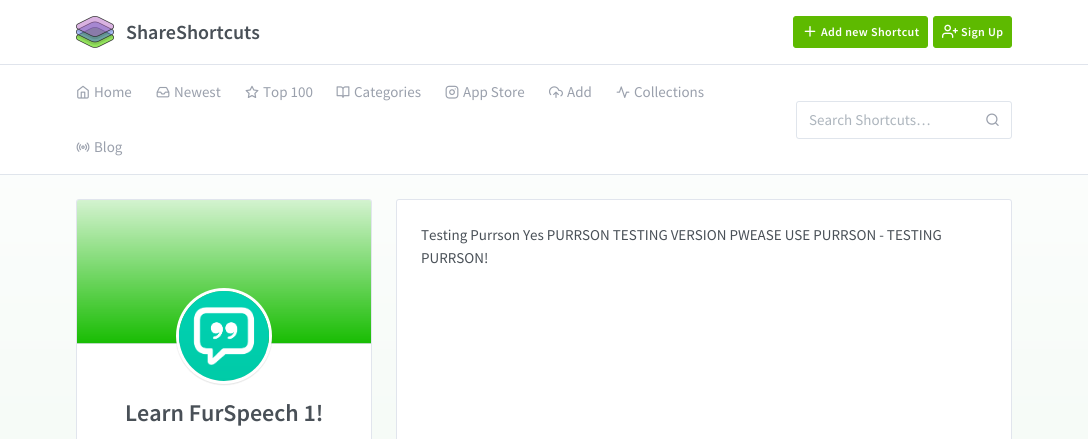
import math
import cairo

surface = cairo.ImageSurface(cairo.FORMAT_RGB24, 1088, 439)
c = cairo.Context(surface)
options = cairo.FontOptions()
options.set_hint_metrics(cairo.HINT_METRICS_OFF)
options.set_hint_style(cairo.HINT_STYLE_NONE)
c.set_font_options(options)
c.set_miter_limit(4)
def C(code):
 c.set_source_rgb(*(v / 255 for v in bytes.fromhex(code[-6:])))
def F(family, size, italic, bold):
 c.select_font_face(family, cairo.FONT_SLANT_ITALIC if italic else cairo.FONT_SLANT_NORMAL, cairo.FONT_WEIGHT_BOLD if bold else cairo.FONT_WEIGHT_NORMAL)
 c.set_font_size(size)
def T(x, y, s):
 c.move_to(x, y)
 c.show_text(s)
def L(x, y, s, letter, word):
 c.move_to(x, y)
 for ch in s:
  c.show_text(ch)
  c.rel_move_to(letter + word * (ch == ' '), 0)
def R(x, y, w, h):
 c.rectangle(x, y, w, h)
 c.fill()
def Q(x, y, w, h, r):
 c.new_sub_path()
 for i, (u, v) in enumerate([(x + w - r, y + h - r), (x + r, y + h - r), (x + r, y + r), (x + w - r, y + r)]):
  c.arc(u, v, r, i * math.pi / 2, (i + 1) * math.pi / 2)
 c.close_path()
def S(x, y, w, h, r, blur, alpha):
 c.push_group_with_content(cairo.CONTENT_ALPHA)
 c.set_operator(cairo.OPERATOR_SOURCE)
 for i in range(15, -16, -2):
  e = blur * i / 6
  if min(w, h) + 2 * e > 0:
   c.set_source_rgba(0, 0, 0, alpha * math.erfc((i - 1) / 8.5) / 2)
   Q(x - e, y - e, w + 2 * e, h + 2 * e, max(0, min(r + e + blur * .6, min(w, h) / 2 + e)))
   c.fill()
 c.mask(c.pop_group())
def I(path, x, y, w, h):
 c.save()
 c.set_source_surface(cairo.ImageSurface.create_from_png(path), x, y)
 c.rectangle(x, y, w, h)
 c.fill()
 c.restore()
C('ffffff')
c.paint()
gradient = cairo.LinearGradient(544,0,544,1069)
gradient.add_color_stop_rgba(0,1,1,1,1)
gradient.add_color_stop_rgba(1,0.91,0.957,0.922,1)
c.set_source(gradient)
R(0,116,1088,323)
C('e0e4ec')
R(0,64,1088,1)
I('1.png',76,16,38,32)
F('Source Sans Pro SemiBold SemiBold',20,0,0)
C('495057')
T(126,39,'ShareShortcuts')
C('5eba00')
Q(793.5,16.5,134,31,2.5)
c.fill_preserve()
c.set_line_width(1)
c.stroke()
I('2.png',804,26,12,11)
F('Source Sans Pro SemiBold SemiBold',12,0,0)
C('ffffff')
L(821,36,'Add new Shortcut',.4,0)
C('5eba00')
Q(933.5,16.5,78,31,2.5)
c.fill_preserve()
c.stroke()
I('3.png',942,24,16,14)
C('ffffff')
L(961,36,'Sign Up',.4,0)
R(0,116,1088,58)
C('e0e5ec')
R(0,174,1088,1)
I('4.png',77,85,12,14)
F('Source Sans Pro',15,0,0)
C('9aa0ac')
T(94,97,'Home')
I('5.png',156,86,14,12)
T(174,97,'Newest')
I('6.png',245,85,14,13)
T(263,97,'Top 100')
I('7.png',336,86,14,12)
T(354,97,'Categories')
I('8.png',445,85,14,14)
T(463,97,'App Store')
I('9.png',549,86,14,12)
T(567,97,'Add')
I('10.png',616,86,14,12)
T(634,97,'Collections')
I('11.png',76,142,14,10)
T(94,152,'Blog')
Q(796.5,101.5,215,37,2.5)
C('e0e5ec')
c.stroke()
C('adb5bd')
T(809,125,'Search Shortcuts…')
I('12.png',986,113,13,13)
C('ffffff')
Q(396,199,616,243,3)
c.fill()
Q(396.5,199.5,615,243,2.5)
c.set_source_rgba(0,0.157,0.392,0.12)
c.stroke()
C('495057')
T(421,240,'Testing Purrson Yes PURRSON TESTING VERSION PWEASE USE PURRSON - TESTING')
T(421,263,'PURRSON!')
C('ffffff')
Q(76,199,296,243,3)
c.fill()
Q(76.5,199.5,295,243,2.5)
c.set_source_rgba(0,0.157,0.392,0.12)
c.stroke()
gradient = cairo.LinearGradient(224,200,224,343)
gradient.add_color_stop_rgba(0,0.098,0.741,0.012,.19)
gradient.add_color_stop_rgba(1,0.098,0.741,0.012,1)
c.set_source(gradient)
c.new_path()
c.move_to(79,200)
c.line_to(369,200)
c.curve_to(370,200,371,201,371,202)
c.line_to(371,343)
c.line_to(77,343)
c.line_to(77,202)
c.curve_to(77,201,78,200,79,200)
c.close_path()
c.fill()
C('b9dac1')
R(77,343,294,1)
C('000000')
S(176,289,96,96,48,.5,.1)
c.arc(224,336,46.5,0,2 * math.pi)
C('ffffff')
c.set_line_width(3)
c.stroke()
I('13.png',179,291,90,90)
F('Source Sans Pro SemiBold SemiBold',24,0,0)
C('495057')
T(125,421,'Learn FurSpeech 1!')
surface.write_to_png('o.png')
